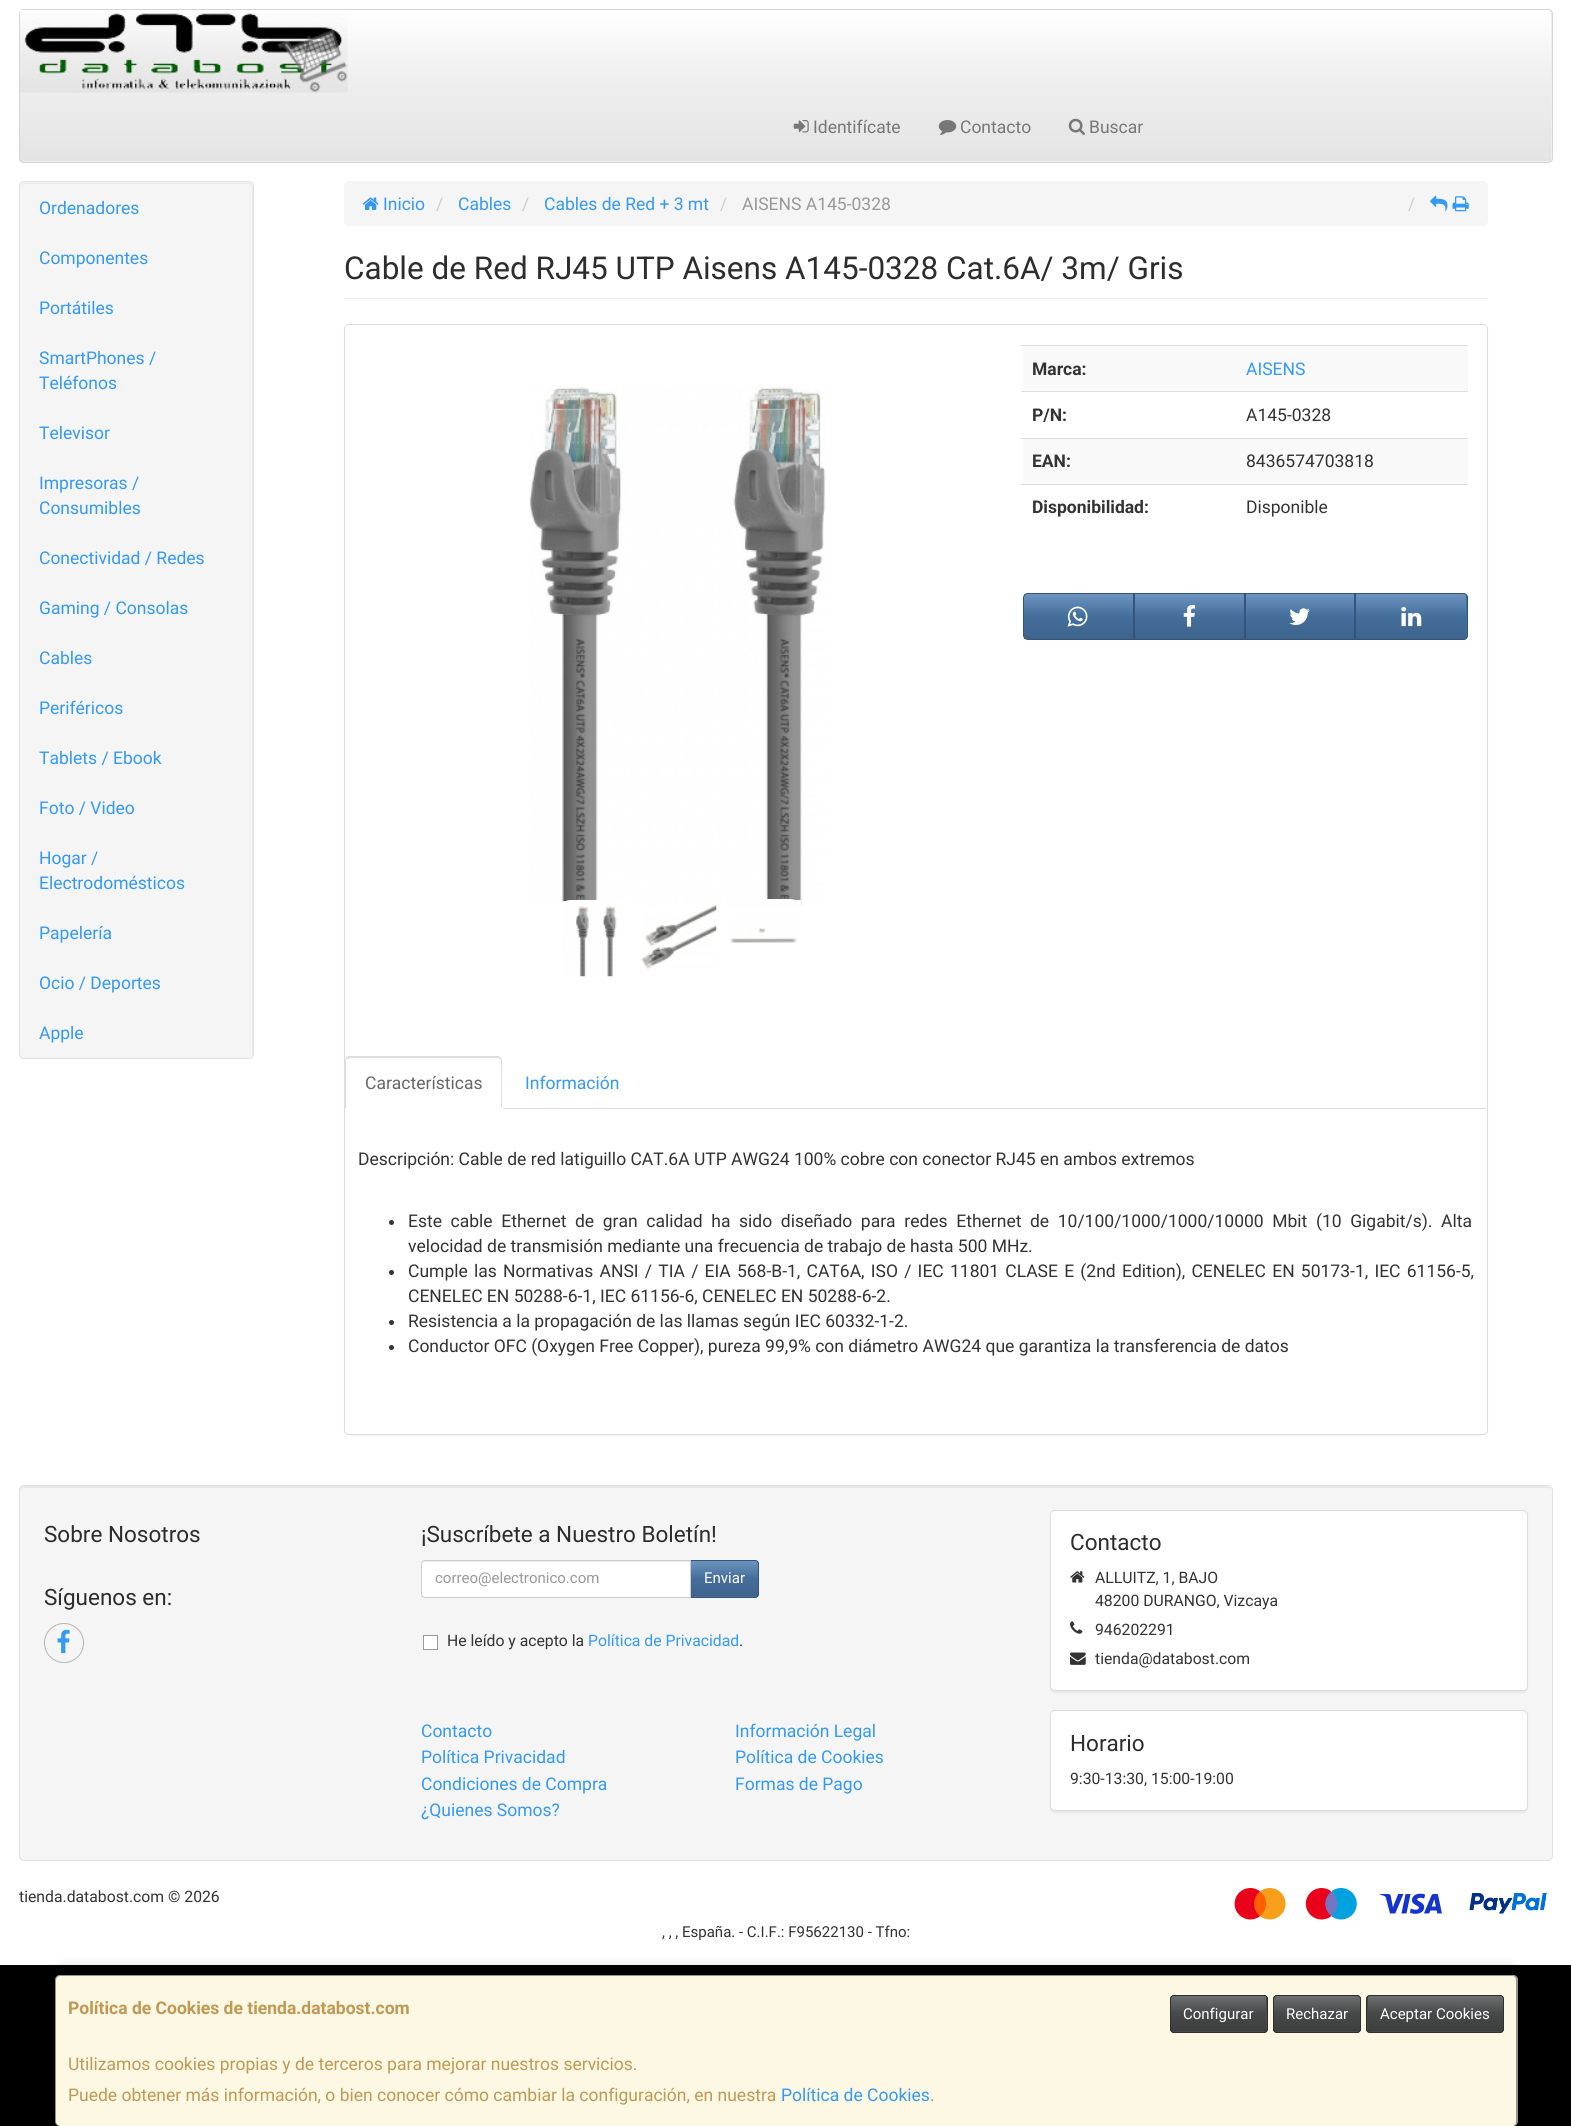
import math
import cairo

surface = cairo.ImageSurface(cairo.FORMAT_RGB24, 1571, 2126)
c = cairo.Context(surface)
options = cairo.FontOptions()
options.set_hint_metrics(cairo.HINT_METRICS_OFF)
options.set_hint_style(cairo.HINT_STYLE_NONE)
c.set_font_options(options)
c.set_miter_limit(4)
def C(code):
 c.set_source_rgb(*(v / 255 for v in bytes.fromhex(code[-6:])))
def F(family, size, italic, bold):
 c.select_font_face(family, cairo.FONT_SLANT_ITALIC if italic else cairo.FONT_SLANT_NORMAL, cairo.FONT_WEIGHT_BOLD if bold else cairo.FONT_WEIGHT_NORMAL)
 c.set_font_size(size)
def T(x, y, s):
 c.move_to(x, y)
 c.show_text(s)
def L(x, y, s, letter, word):
 c.move_to(x, y)
 for ch in s:
  c.show_text(ch)
  c.rel_move_to(letter + word * (ch == ' '), 0)
def R(x, y, w, h):
 c.rectangle(x, y, w, h)
 c.fill()
def Q(x, y, w, h, r):
 c.new_sub_path()
 for i, (u, v) in enumerate([(x + w - r, y + h - r), (x + r, y + h - r), (x + r, y + r), (x + w - r, y + r)]):
  c.arc(u, v, r, i * math.pi / 2, (i + 1) * math.pi / 2)
 c.close_path()
def S(x, y, w, h, r, blur, alpha):
 c.push_group_with_content(cairo.CONTENT_ALPHA)
 c.set_operator(cairo.OPERATOR_SOURCE)
 for i in range(15, -16, -2):
  e = blur * i / 6
  if min(w, h) + 2 * e > 0:
   c.set_source_rgba(0, 0, 0, alpha * math.erfc((i - 1) / 8.5) / 2)
   Q(x - e, y - e, w + 2 * e, h + 2 * e, max(0, min(r + e + blur * .6, min(w, h) / 2 + e)))
   c.fill()
 c.mask(c.pop_group())
def I(path, x, y, w, h):
 c.save()
 c.set_source_surface(cairo.ImageSurface.create_from_png(path), x, y)
 c.rectangle(x, y, w, h)
 c.fill()
 c.restore()
C('000000')
c.paint()
C('ffffff')
R(0,0,1571,1965)
C('eeeeee')
Q(19,9,1534,154,5)
c.fill()
gradient = cairo.LinearGradient(786,10,786,161)
gradient.add_color_stop_rgba(0,1,1,1,1)
gradient.add_color_stop_rgba(.5,0.933,0.933,0.933,1)
gradient.add_color_stop_rgba(1,0.894,0.894,0.894,1)
c.set_source(gradient)
R(20,10,1531,151)
Q(19.5,9.5,1533,153,4.5)
C('d5d5d5')
c.set_line_width(1)
c.stroke()
I('1.png',20,10,328,83)
I('2.png',793,120,16,13)
F('Roboto',17.5,0,0)
C('777777')
T(813,133,'Identifícate')
I('3.png',938,120,19,15)
T(960,133,'Contacto')
I('4.png',1068,118,17,17)
T(1089,133,'Buscar')
C('f5f5f5')
Q(19,181,235,878,5)
c.fill()
C('e9e9e9')
c.new_path()
c.move_to(24,184)
c.line_to(249,184)
c.curve_to(251,184,252,185,252,188)
c.line_to(252,1055)
c.line_to(252,1057)
c.curve_to(252,1056,253,1055,253,1054)
c.line_to(253,187)
c.curve_to(253,185,251,183,249,183)
c.line_to(24,183)
c.curve_to(22,183,20,185,20,187)
c.line_to(20,188)
c.curve_to(20,185,22,184,24,184)
c.close_path()
c.fill()
Q(19.5,181.5,234,877,4.5)
C('e3e3e3')
c.stroke()
C('3399f3')
T(39,214,'Ordenadores')
T(39,264,'Componentes')
T(39,314,'Portátiles')
T(39,364,'SmartPhones /')
T(39,389,'Teléfonos')
T(39,439,'Televisor')
T(39,489,'Impresoras /')
T(39,514,'Consumibles')
T(39,564,'Conectividad / Redes')
T(39,614,'Gaming / Consolas')
T(39,664,'Cables')
T(39,714,'Periféricos')
T(39,764,'Tablets / Ebook')
T(39,814,'Foto / Video')
T(39,864,'Hogar /')
T(39,889,'Electrodomésticos')
T(39,939,'Papelería')
T(39,989,'Ocio / Deportes')
T(39,1039,'Apple')
C('f5f5f5')
Q(344,181,1144,45,5)
c.fill()
I('5.png',362,197,17,13)
C('3399f3')
T(383,210,'Inicio')
C('cccccc')
T(436,210,'/')
C('3399f3')
T(458,210,'Cables')
C('cccccc')
T(522,210,'/')
C('3399f3')
T(544,210,'Cables de Red + 3 mt')
C('cccccc')
T(720,210,'/')
C('999999')
T(742,210,'AISENS A145-0328')
C('cccccc')
T(1408,210,'/')
I('6.png',1430,195,18,17)
I('7.png',1452,196,17,16)
C('eeeeee')
R(344,298,1144,1)
F('Roboto',31.5,0,0)
C('2d2d2d')
T(344,279,'Cable de Red RJ45 UTP Aisens A145-0328 Cat.6A/ 3m/ Gris')
C('000000')
S(344,325,1144,1111,5,.5,.05)
C('ffffff')
Q(344.5,324.5,1143,1110,4.5)
c.fill_preserve()
C('dddddd')
c.stroke()
I('8.png',529,384,297,521)
C('ffffff')
Q(558.5,900.5,76,74,12.5)
c.fill_preserve()
c.stroke()
I('9.png',562,901,55,76)
I('10.png',641,905,76,64)
Q(725.5,899.5,77,74,12.5)
c.stroke()
I('11.png',730,900,72,43)
C('f9f9f9')
R(1023,346,445,45)
F('Roboto',17.5,0,1)
C('333333')
T(1032,375,'Marca:')
C('dddddd')
R(1021,345,447,1)
F('Roboto',17.5,0,0)
C('3399f3')
T(1246,375,'AISENS')
F('Roboto',17.5,0,1)
C('333333')
T(1032,421,'P/N:')
C('dddddd')
R(1021,391,447,1)
F('Roboto',17.5,0,0)
C('333333')
T(1246,421,'A145-0328')
C('f9f9f9')
R(1023,439,445,45)
F('Roboto',17.5,0,1)
C('333333')
T(1032,467,'EAN:')
C('dddddd')
R(1021,438,447,1)
F('Roboto',17.5,0,0)
C('333333')
T(1246,467,'8436574703818')
F('Roboto',17.5,0,1)
T(1032,513,'Disponibilidad:')
C('dddddd')
R(1021,484,447,1)
F('Roboto',17.5,0,0)
C('333333')
T(1246,513,'Disponible')
gradient = cairo.LinearGradient(1078,594,1078,639)
gradient.add_color_stop_rgba(0,0.427,0.58,0.749,1)
gradient.add_color_stop_rgba(.5,0.267,0.431,0.608,1)
gradient.add_color_stop_rgba(1,0.243,0.392,0.553,1)
c.set_source(gradient)
R(1024,594,109,45)
c.new_path()
c.move_to(1028,593.5)
c.line_to(1133.5,593.5)
c.line_to(1133.5,639.5)
c.line_to(1028,639.5)
c.curve_to(1025.5,639.5,1023.5,637.5,1023.5,635)
c.line_to(1023.5,598)
c.curve_to(1023.5,595.5,1025.5,593.5,1028,593.5)
c.close_path()
C('345578')
c.stroke()
I('12.png',1067,606,21,21)
gradient = cairo.LinearGradient(1189,594,1189,639)
gradient.add_color_stop_rgba(0,0.427,0.58,0.749,1)
gradient.add_color_stop_rgba(.5,0.267,0.431,0.608,1)
gradient.add_color_stop_rgba(1,0.243,0.392,0.553,1)
c.set_source(gradient)
R(1135,594,109,45)
c.rectangle(1134.5,593.5,110,46)
C('345578')
c.stroke()
I('13.png',1183,605,12,22)
gradient = cairo.LinearGradient(1300,594,1300,639)
gradient.add_color_stop_rgba(0,0.427,0.58,0.749,1)
gradient.add_color_stop_rgba(.5,0.267,0.431,0.608,1)
gradient.add_color_stop_rgba(1,0.243,0.392,0.553,1)
c.set_source(gradient)
R(1246,594,108,45)
c.rectangle(1245.5,593.5,109,46)
C('345578')
c.stroke()
I('14.png',1289,608,21,17)
C('446e9b')
c.new_path()
c.move_to(1355,593)
c.line_to(1463,593)
c.curve_to(1466,593,1468,595,1468,598)
c.line_to(1468,635)
c.curve_to(1468,638,1466,640,1463,640)
c.line_to(1355,640)
c.close_path()
c.fill()
gradient = cairo.LinearGradient(1411,594,1411,639)
gradient.add_color_stop_rgba(0,0.427,0.58,0.749,1)
gradient.add_color_stop_rgba(.5,0.267,0.431,0.608,1)
gradient.add_color_stop_rgba(1,0.243,0.392,0.553,1)
c.set_source(gradient)
R(1356,594,110,45)
c.new_path()
c.move_to(1355.5,593.5)
c.line_to(1463,593.5)
c.curve_to(1465.5,593.5,1467.5,595.5,1467.5,598)
c.line_to(1467.5,635)
c.curve_to(1467.5,637.5,1465.5,639.5,1463,639.5)
c.line_to(1355.5,639.5)
c.close_path()
C('345578')
c.stroke()
I('15.png',1401,606,21,21)
C('dddddd')
R(503,1108,983,1)
c.new_path()
c.move_to(350,1058)
c.line_to(347,1059)
c.line_to(346,1058)
c.line_to(348,1056)
c.line_to(499,1056)
c.line_to(501,1058)
c.line_to(500,1059)
c.line_to(498,1058)
c.close_path()
c.fill()
c.new_path()
c.move_to(501,1058)
c.curve_to(502,1059,502,1060,502,1061)
c.line_to(502,1108)
c.line_to(501,1107)
c.curve_to(501,1102,502,1060,500,1059)
c.close_path()
c.fill()
c.new_path()
c.move_to(345,1109)
c.line_to(346,1108)
c.line_to(346,1060)
c.line_to(347,1059)
c.line_to(346,1058)
c.curve_to(345,1058,345,1060,345,1061)
c.close_path()
c.fill()
C('666666')
T(365,1089,'Características')
C('3399f3')
T(525,1089,'Información')
C('333333')
T(358,1165,'Descripción: Cable de red latiguillo CAT.6A UTP AWG24 100% cobre con conector RJ45 en ambos extremos')
c.new_path()
c.arc(391.5,1222.5,2.5,0,2 * math.pi)
c.fill()
L(408,1227,'Este cable Ethernet de gran calidad ha sido diseñado para redes Ethernet de 10/100/1000/1000/10000 Mbit (10 Gigabit/s). Alta',0,4.25)
T(408,1252,'velocidad de transmisión mediante una frecuencia de trabajo de hasta 500 MHz.')
c.new_path()
c.arc(391.5,1272.5,2.5,0,2 * math.pi)
c.fill()
L(408,1277,'Cumple las Normativas ANSI / TIA / EIA 568-B-1, CAT6A, ISO / IEC 11801 CLASE E (2nd Edition), CENELEC EN 50173-1, IEC 61156-5,',0,1.9)
T(408,1302,'CENELEC EN 50288-6-1, IEC 61156-6, CENELEC EN 50288-6-2.')
c.new_path()
c.arc(391.5,1322.5,2.5,0,2 * math.pi)
c.fill()
T(408,1327,'Resistencia a la propagación de las llamas según IEC 60332-1-2.')
c.new_path()
c.arc(391.5,1347.5,2.5,0,2 * math.pi)
c.fill()
T(408,1352,'Conductor OFC (Oxygen Free Copper), pureza 99,9% con diámetro AWG24 que garantiza la transferencia de datos')
C('f5f5f5')
Q(19,1485,1534,376,5)
c.fill()
C('e9e9e9')
c.new_path()
c.move_to(24,1488)
c.line_to(1548,1488)
c.curve_to(1550,1488,1551,1489,1551,1491)
c.line_to(1551,1490)
c.curve_to(1551,1488,1549,1486,1547,1486)
c.line_to(24,1486)
c.curve_to(22,1486,20,1488,20,1490)
c.line_to(20,1491)
c.curve_to(20,1489,22,1488,24,1488)
c.close_path()
c.fill()
Q(19.5,1485.5,1533,375,4.5)
C('e3e3e3')
c.stroke()
F('Roboto',22.5,0,0)
C('2d2d2d')
T(44,1542,'Sobre Nosotros')
T(44,1605,'Síguenos en:')
c.new_path()
c.arc(64,1643,19.5,0,2 * math.pi)
C('b5b5b5')
c.stroke()
I('16.png',57,1629,13,25)
C('2d2d2d')
T(421,1542,'¡Suscríbete a Nuestro Boletín!')
C('446e9b')
c.new_path()
c.move_to(690,1560)
c.line_to(755,1560)
c.curve_to(757,1560,759,1562,759,1564)
c.line_to(759,1594)
c.curve_to(759,1596,757,1598,755,1598)
c.line_to(690,1598)
c.close_path()
c.fill()
gradient = cairo.LinearGradient(724,1561,724,1596)
gradient.add_color_stop_rgba(0,0.427,0.58,0.749,1)
gradient.add_color_stop_rgba(.5,0.267,0.431,0.608,1)
gradient.add_color_stop_rgba(1,0.243,0.392,0.553,1)
c.set_source(gradient)
R(691,1561,67,35)
c.new_path()
c.move_to(690.5,1560.5)
c.line_to(755,1560.5)
c.curve_to(757,1560.5,758.5,1562,758.5,1564)
c.line_to(758.5,1594)
c.curve_to(758.5,1596,757,1597.5,755,1597.5)
c.line_to(690.5,1597.5)
c.close_path()
C('345578')
c.stroke()
C('ffffff')
c.new_path()
c.move_to(425,1560)
c.line_to(691,1560)
c.line_to(691,1598)
c.line_to(425,1598)
c.curve_to(423,1598,421,1596,421,1594)
c.line_to(421,1564)
c.curve_to(421,1562,423,1560,425,1560)
c.close_path()
c.fill()
C('ececec')
c.new_path()
c.move_to(425,1562)
c.line_to(690,1562)
c.line_to(690,1561)
c.line_to(426,1561)
c.curve_to(424,1561,423,1562,423,1563)
c.close_path()
c.fill()
c.new_path()
c.move_to(425,1560.5)
c.line_to(690.5,1560.5)
c.line_to(690.5,1597.5)
c.line_to(425,1597.5)
c.curve_to(423,1597.5,421.5,1596,421.5,1594)
c.line_to(421.5,1564)
c.curve_to(421.5,1562,423,1560.5,425,1560.5)
c.close_path()
C('cccccc')
c.stroke()
F('Roboto',15,0,0)
C('999999')
T(435,1583,'correo@electronico.com')
C('ffffff')
T(704,1583,'Enviar')
c.rectangle(423.5,1635.5,14,14)
c.fill_preserve()
C('999999')
c.stroke()
F('Roboto',15.75,0,0)
C('333333')
T(447,1646,'He leído y acepto la')
C('3399f3')
T(588,1646,'Política de Privacidad')
C('333333')
T(739,1646,'.')
F('Roboto',17.5,0,0)
C('3399f3')
T(421,1737,'Contacto')
T(735,1737,'Información Legal')
T(421,1763,'Política Privacidad')
T(735,1763,'Política de Cookies')
T(421,1790,'Condiciones de Compra')
T(735,1790,'Formas de Pago')
T(421,1816,'¿Quienes Somos?')
C('000000')
S(1050,1511,478,182,5,.5,.05)
C('ffffff')
Q(1050.5,1510.5,477,180,4.5)
c.fill_preserve()
C('dddddd')
c.stroke()
F('Roboto',22.5,0,0)
C('2d2d2d')
T(1070,1550,'Contacto')
I('17.png',1070,1571,15,12)
F('Roboto',15.75,0,0)
C('333333')
T(1095,1583,'ALLUITZ, 1, BAJO')
T(1095,1606,'48200 DURANGO, Vizcaya')
I('18.png',1070,1621,13,13)
T(1095,1635,'946202291')
I('19.png',1070,1652,16,13)
T(1095,1664,'tienda@databost.com')
C('000000')
S(1050,1711,478,102,5,.5,.05)
C('ffffff')
Q(1050.5,1710.5,477,100,4.5)
c.fill_preserve()
C('dddddd')
c.stroke()
F('Roboto',22.5,0,0)
C('2d2d2d')
T(1070,1751,'Horario')
F('Roboto',15.75,0,0)
C('333333')
T(1070,1784,'9:30-13:30, 15:00-19:00')
T(19,1902,'tienda.databost.com © 2026')
I('20.png',1234,1888,52,32)
I('21.png',1305,1888,52,32)
I('22.png',1379,1893,63,21)
I('23.png',1469,1893,78,21)
F('Roboto',15,0,0)
T(662,1937,', , , España. - C.I.F.: F95622130 - Tfno:')
C('000000')
S(61,1969,1450,139,0,6,.25)
C('fcf8e3')
Q(55,1975,1463,151,5)
c.fill()
c.set_source_rgba(0,0,0,0.4)
c.set_fill_rule(cairo.FILL_RULE_EVEN_ODD)
c.new_path()
c.move_to(60,1975)
c.line_to(1512,1975)
c.curve_to(1515,1975,1518,1977,1518,1980)
c.line_to(1518,2121)
c.curve_to(1518,2124,1515,2126,1512,2126)
c.line_to(60,2126)
c.curve_to(57,2126,55,2124,55,2121)
c.line_to(55,1980)
c.curve_to(55,1977,57,1975,60,1975)
c.close_path()
c.move_to(60,1976)
c.line_to(1512,1976)
c.curve_to(1515,1976,1516,1978,1516,1980)
c.line_to(1516,2121)
c.curve_to(1516,2124,1515,2126,1512,2126)
c.line_to(60,2126)
c.curve_to(58,2126,56,2124,56,2121)
c.line_to(56,1980)
c.curve_to(56,1978,58,1976,60,1976)
c.close_path()
c.fill()
F('Roboto',17.5,0,1)
C('c09853')
T(68,2014,'Política de Cookies de tienda.databost.com')
C('474949')
Q(1170,1995,98,38,4)
c.fill()
gradient = cairo.LinearGradient(1219,1996,1219,2031)
gradient.add_color_stop_rgba(0,0.427,0.439,0.439,1)
gradient.add_color_stop_rgba(.5,0.278,0.286,0.286,1)
gradient.add_color_stop_rgba(1,0.239,0.247,0.247,1)
c.set_source(gradient)
R(1171,1996,95,35)
Q(1170.5,1995.5,97,37,3.5)
C('2e2f2f')
c.stroke()
F('Roboto',15,0,0)
C('ffffff')
T(1183,2019,'Configurar')
C('474949')
Q(1273,1995,88,38,4)
c.fill()
gradient = cairo.LinearGradient(1317,1996,1317,2031)
gradient.add_color_stop_rgba(0,0.427,0.439,0.439,1)
gradient.add_color_stop_rgba(.5,0.278,0.286,0.286,1)
gradient.add_color_stop_rgba(1,0.239,0.247,0.247,1)
c.set_source(gradient)
R(1274,1996,86,35)
Q(1273.5,1995.5,87,37,3.5)
C('2e2f2f')
c.stroke()
C('ffffff')
T(1286,2019,'Rechazar')
C('474949')
Q(1366,1995,138,38,4)
c.fill()
gradient = cairo.LinearGradient(1435,1996,1435,2031)
gradient.add_color_stop_rgba(0,0.427,0.439,0.439,1)
gradient.add_color_stop_rgba(.5,0.278,0.286,0.286,1)
gradient.add_color_stop_rgba(1,0.239,0.247,0.247,1)
c.set_source(gradient)
R(1368,1996,135,35)
Q(1366.5,1995.5,137,37,3.5)
C('2e2f2f')
c.stroke()
C('ffffff')
T(1380,2019,'Aceptar Cookies')
F('Roboto',17.5,0,0)
C('c09853')
T(68,2070,'Utilizamos cookies propias y de terceros para mejorar nuestros servicios.')
T(68,2101,'Puede obtener más información, o bien conocer cómo cambiar la configuración, en nuestra')
C('3399f3')
T(781,2101,'Política de Cookies')
C('c09853')
T(930,2101,'.')
surface.write_to_png('o.png')
